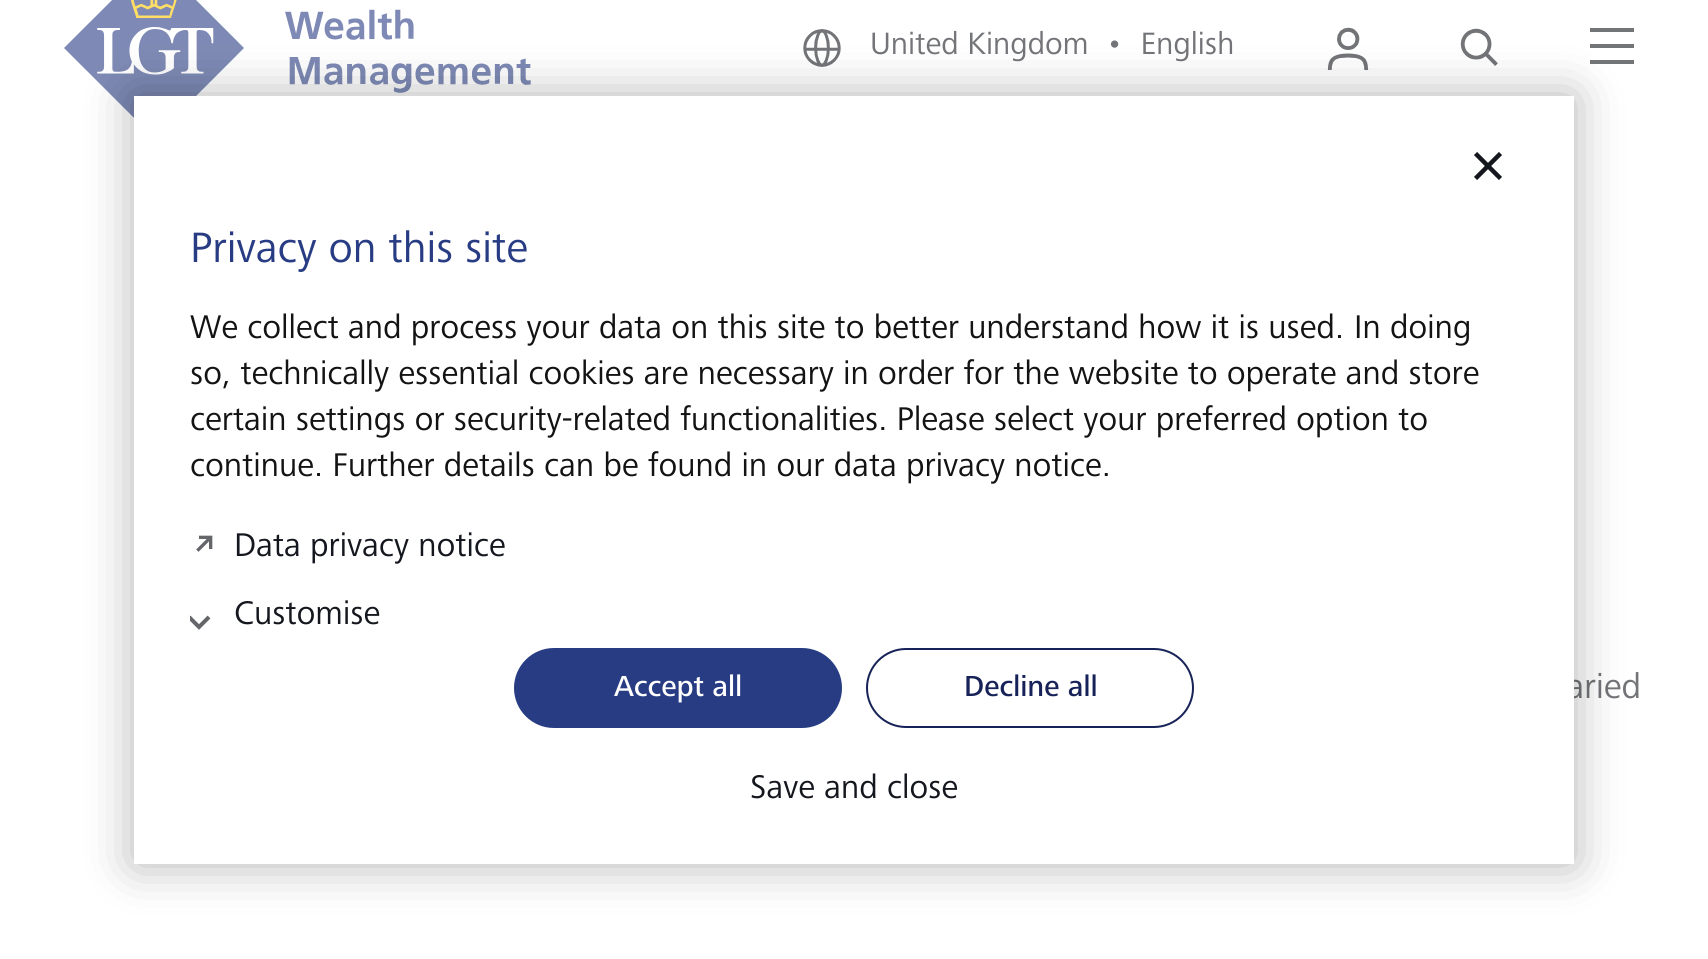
import math
import cairo

surface = cairo.ImageSurface(cairo.FORMAT_RGB24, 1708, 959)
c = cairo.Context(surface)
options = cairo.FontOptions()
options.set_hint_metrics(cairo.HINT_METRICS_OFF)
options.set_hint_style(cairo.HINT_STYLE_NONE)
c.set_font_options(options)
c.set_miter_limit(4)
def C(code):
 c.set_source_rgb(*(v / 255 for v in bytes.fromhex(code[-6:])))
def R(x, y, w, h):
 c.rectangle(x, y, w, h)
 c.fill()
def Q(x, y, w, h, r):
 c.new_sub_path()
 for i, (u, v) in enumerate([(x + w - r, y + h - r), (x + r, y + h - r), (x + r, y + r), (x + w - r, y + r)]):
  c.arc(u, v, r, i * math.pi / 2, (i + 1) * math.pi / 2)
 c.close_path()
def S(x, y, w, h, r, blur, alpha):
 c.push_group_with_content(cairo.CONTENT_ALPHA)
 c.set_operator(cairo.OPERATOR_SOURCE)
 for i in range(15, -16, -2):
  e = blur * i / 6
  if min(w, h) + 2 * e > 0:
   c.set_source_rgba(0, 0, 0, alpha * math.erfc((i - 1) / 8.5) / 2)
   Q(x - e, y - e, w + 2 * e, h + 2 * e, max(0, min(r + e + blur * .6, min(w, h) / 2 + e)))
   c.fill()
 c.mask(c.pop_group())
def I(path, x, y, w, h):
 c.save()
 c.set_source_surface(cairo.ImageSurface.create_from_png(path), x, y)
 c.rectangle(x, y, w, h)
 c.fill()
 c.restore()
C('ffffff')
c.paint()
I('1.png',64,0,467,118)
I('2.png',803,29,38,38)
I('3.png',872,30,361,32)
I('4.png',1327,27,42,43)
I('5.png',1460,28,38,38)
C('737478')
R(1590,28,44,4)
R(1590,44,44,4)
R(1590,60,44,4)
I('19.png',1574,672,65,27)
C('000000')
S(134,96,1440,768,0,24,.3)
C('ffffff')
R(134,96,1440,768)
I('6.png',1474,152,28,28)
I('7.png',193,230,334,42)
I('8.png',190,313,1151,33)
I('9.png',1356,313,113,33)
I('10.png',191,359,1288,33)
I('11.png',191,405,1236,33)
I('12.png',191,451,917,33)
I('13.png',196,535,17,17)
I('14.png',236,532,269,32)
c.save()
c.rectangle(190,226,1328,422)
c.clip()
c.new_path()
c.move_to(209,617)
c.line_to(199,627)
c.line_to(189,617)
C('65666a')
c.set_line_width(4)
c.stroke()
c.restore()
I('15.png',235,600,145,25)
C('283c83')
Q(515,649,326,78,39)
c.fill_preserve()
c.stroke()
I('16.png',614,674,127,29)
Q(867,649,326,78,39)
C('162258')
c.stroke()
I('17.png',966,674,130,23)
I('18.png',751,773,207,26)
surface.write_to_png('o.png')
